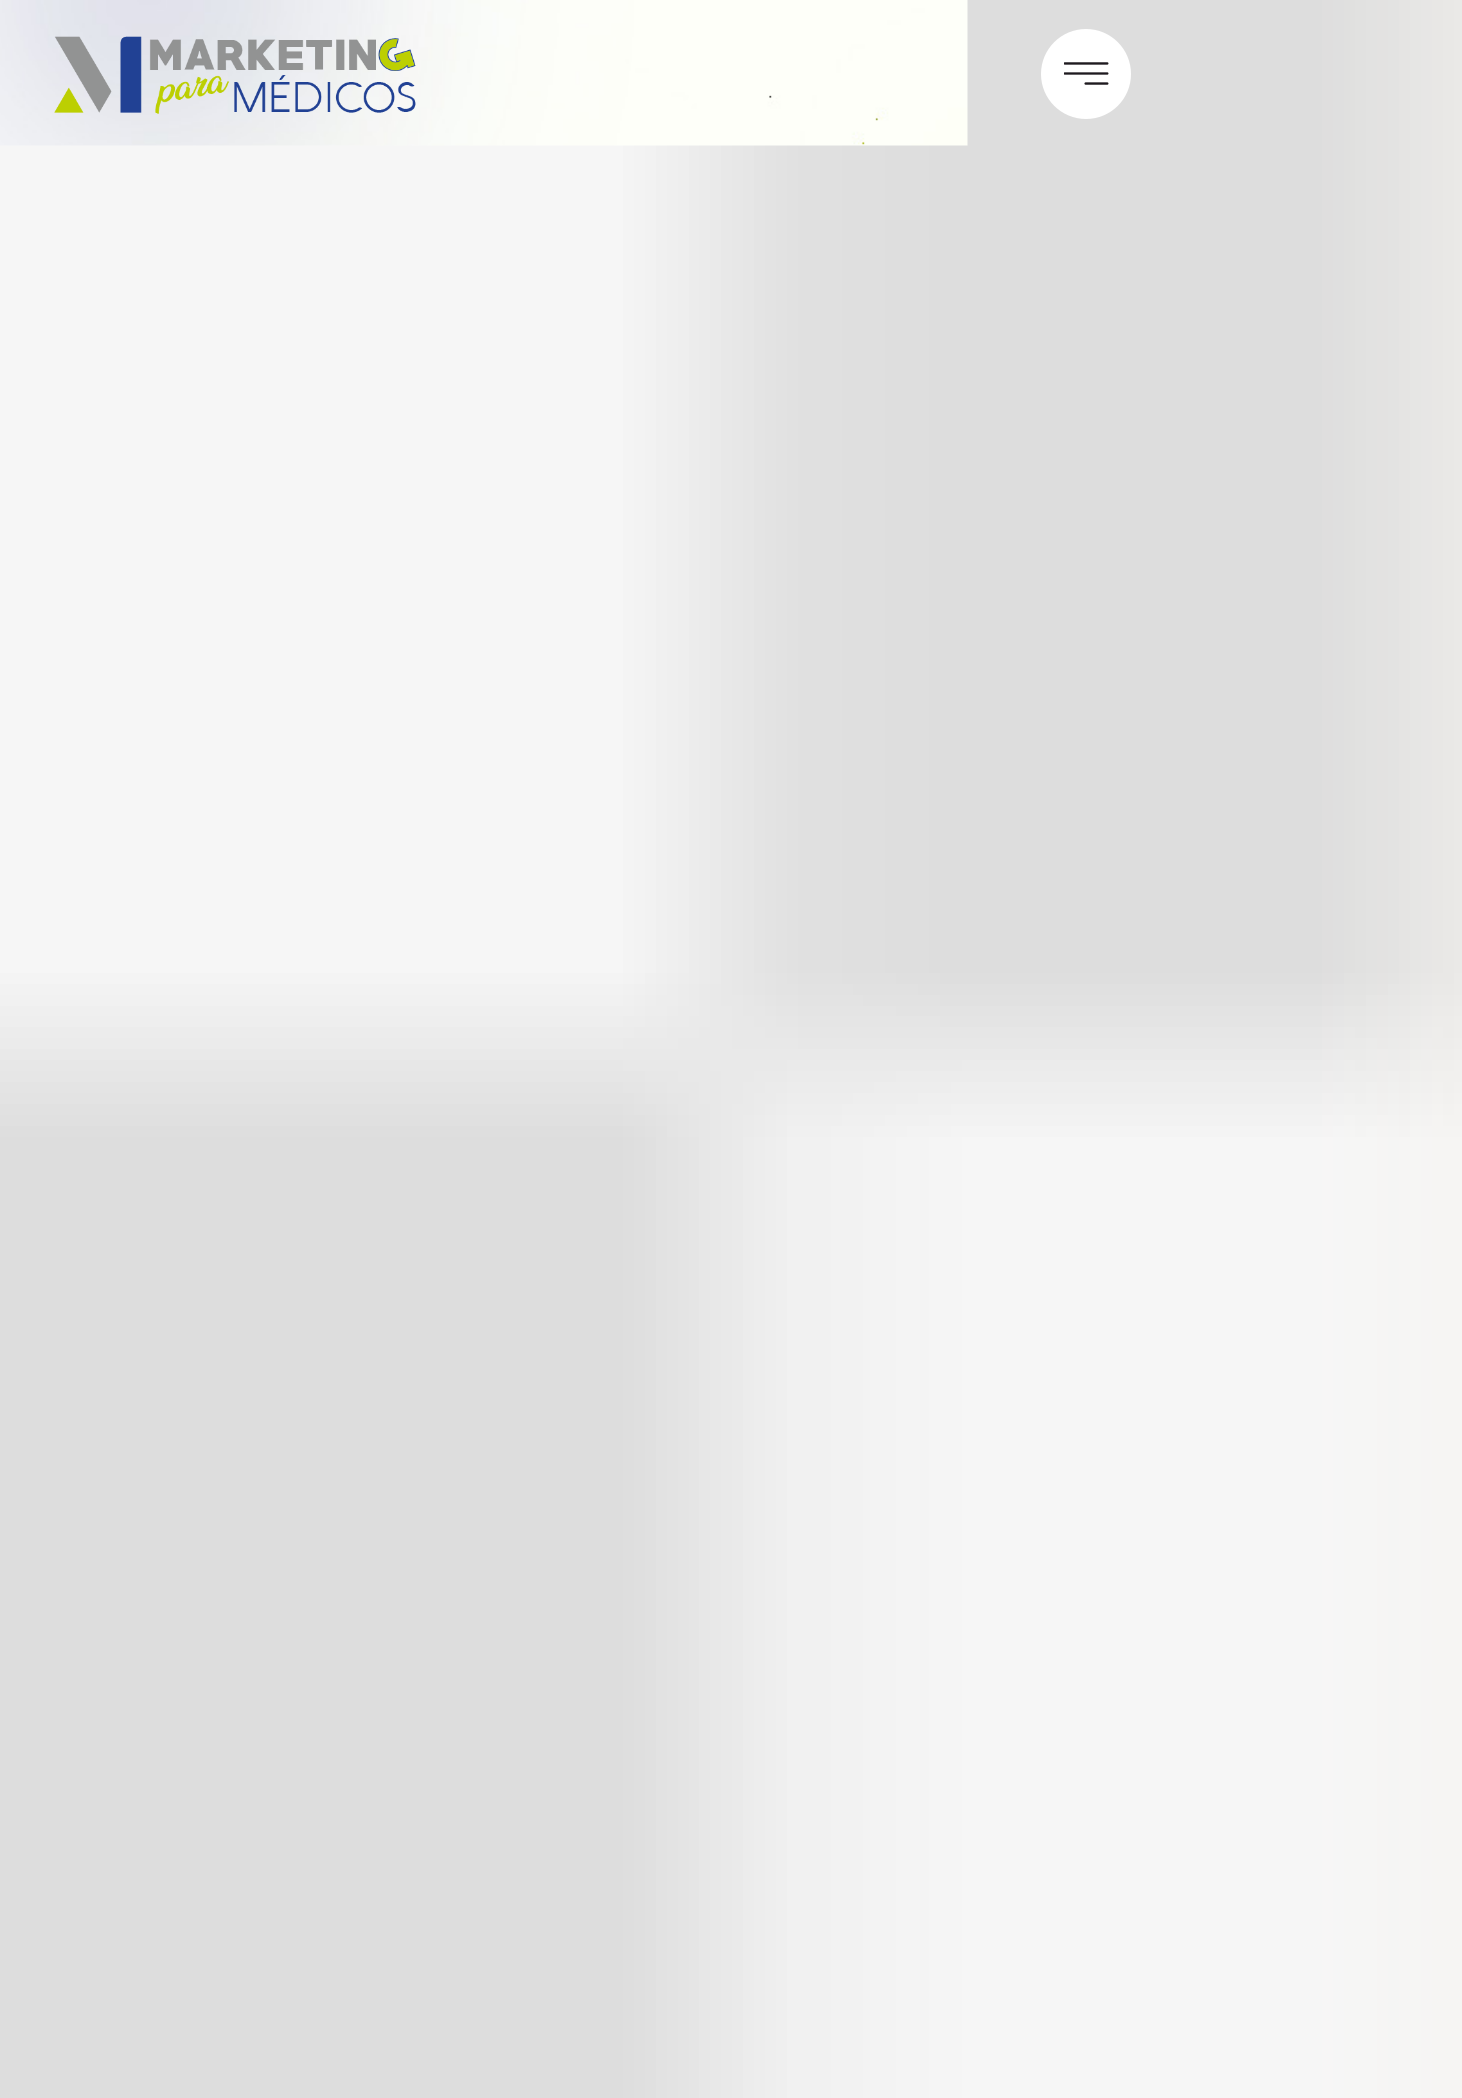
import math
import cairo

surface = cairo.ImageSurface(cairo.FORMAT_RGB24, 1462, 2098)
c = cairo.Context(surface)
options = cairo.FontOptions()
options.set_hint_metrics(cairo.HINT_METRICS_OFF)
options.set_hint_style(cairo.HINT_STYLE_NONE)
c.set_font_options(options)
c.set_miter_limit(4)
def C(code):
 c.set_source_rgb(*(v / 255 for v in bytes.fromhex(code[-6:])))
def I(path, x, y, w, h):
 c.save()
 c.set_source_surface(cairo.ImageSurface.create_from_png(path), x, y)
 c.rectangle(x, y, w, h)
 c.fill()
 c.restore()
C('f5f3ef')
c.paint()
I('1.png',0,0,1462,2098)
I('2.png',0,0,968,146)
I('3.png',54,36,362,78)
C('ffffff')
c.arc(1086,74,45,0,2 * math.pi)
c.fill()
I('4.png',1064,62,45,23)
surface.write_to_png('o.png')
